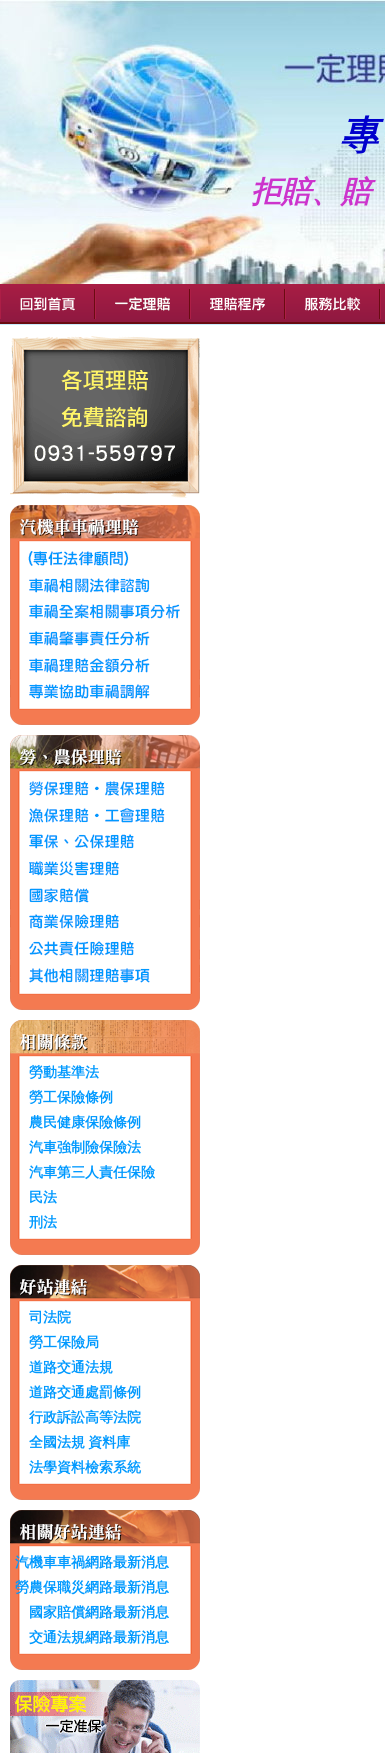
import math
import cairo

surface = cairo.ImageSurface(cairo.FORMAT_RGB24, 385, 1753)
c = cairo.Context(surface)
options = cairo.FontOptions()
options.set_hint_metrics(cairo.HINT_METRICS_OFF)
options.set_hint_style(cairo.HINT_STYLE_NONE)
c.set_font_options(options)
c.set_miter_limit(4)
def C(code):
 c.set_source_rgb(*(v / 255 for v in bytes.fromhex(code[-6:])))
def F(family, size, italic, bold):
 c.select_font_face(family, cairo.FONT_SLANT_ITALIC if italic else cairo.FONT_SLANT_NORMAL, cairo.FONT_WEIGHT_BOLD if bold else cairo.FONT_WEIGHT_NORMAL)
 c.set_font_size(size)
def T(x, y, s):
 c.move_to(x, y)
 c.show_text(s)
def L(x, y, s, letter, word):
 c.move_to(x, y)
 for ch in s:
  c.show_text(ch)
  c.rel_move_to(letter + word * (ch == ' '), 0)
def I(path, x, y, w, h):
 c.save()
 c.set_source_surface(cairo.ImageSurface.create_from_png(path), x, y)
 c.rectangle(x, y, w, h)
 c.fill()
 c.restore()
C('ffffff')
c.paint()
I('1.png',0,324,385,1)
I('2.png',0,0,385,284)
F('WenQuanYi Zen Hei',38,1,1)
C('0000cc')
L(340,148,'專',0,-2)
F('WenQuanYi Zen Hei',30,1,1)
C('cc33cc')
T(251,202,'拒賠、賠')
I('3.png',0,284,95,40)
I('4.png',95,284,95,40)
I('5.png',190,284,95,40)
I('6.png',285,284,95,40)
I('7.png',380,284,5,40)
I('8.png',10,336,190,162)
I('9.png',10,505,190,220)
I('10.png',10,735,190,275)
I('11.png',10,1020,190,40)
I('12.png',10,1060,190,25)
F('WenQuanYi Zen Hei',14,0,1)
C('0099ff')
T(29,1077,'勞動基準法')
I('12.png',10,1085,190,25)
T(29,1102,'勞工保險條例')
I('12.png',10,1110,190,25)
T(29,1127,'農民健康保險條例')
I('12.png',10,1135,190,25)
T(29,1152,'汽車強制險保險法')
I('12.png',10,1160,190,25)
T(29,1177,'汽車第三人責任保險')
I('12.png',10,1185,190,25)
T(29,1202,'民法')
I('12.png',10,1210,190,25)
T(29,1227,'刑法')
I('13.png',10,1235,190,20)
I('14.png',10,1265,190,40)
I('12.png',10,1305,190,25)
T(29,1322,'司法院')
I('12.png',10,1330,190,25)
T(29,1347,'勞工保險局')
I('12.png',10,1355,190,25)
T(29,1372,'道路交通法規')
I('12.png',10,1380,190,25)
T(29,1397,'道路交通處罰條例')
I('12.png',10,1405,190,25)
T(29,1422,'行政訴訟高等法院')
I('12.png',10,1430,190,25)
L(29,1447,'全國法規 資料庫',0,-1)
I('12.png',10,1455,190,25)
T(29,1472,'法學資料檢索系統')
I('13.png',10,1480,190,20)
I('15.png',10,1510,190,40)
I('12.png',10,1550,190,25)
T(15,1567,'汽機車車禍網路最新消息')
I('12.png',10,1575,190,25)
T(15,1592,'勞農保職災網路最新消息')
I('12.png',10,1600,190,25)
T(29,1617,'國家賠償網路最新消息')
I('12.png',10,1625,190,25)
T(29,1642,'交通法規網路最新消息')
I('13.png',10,1650,190,20)
I('16.png',10,1680,190,73)
surface.write_to_png('o.png')
